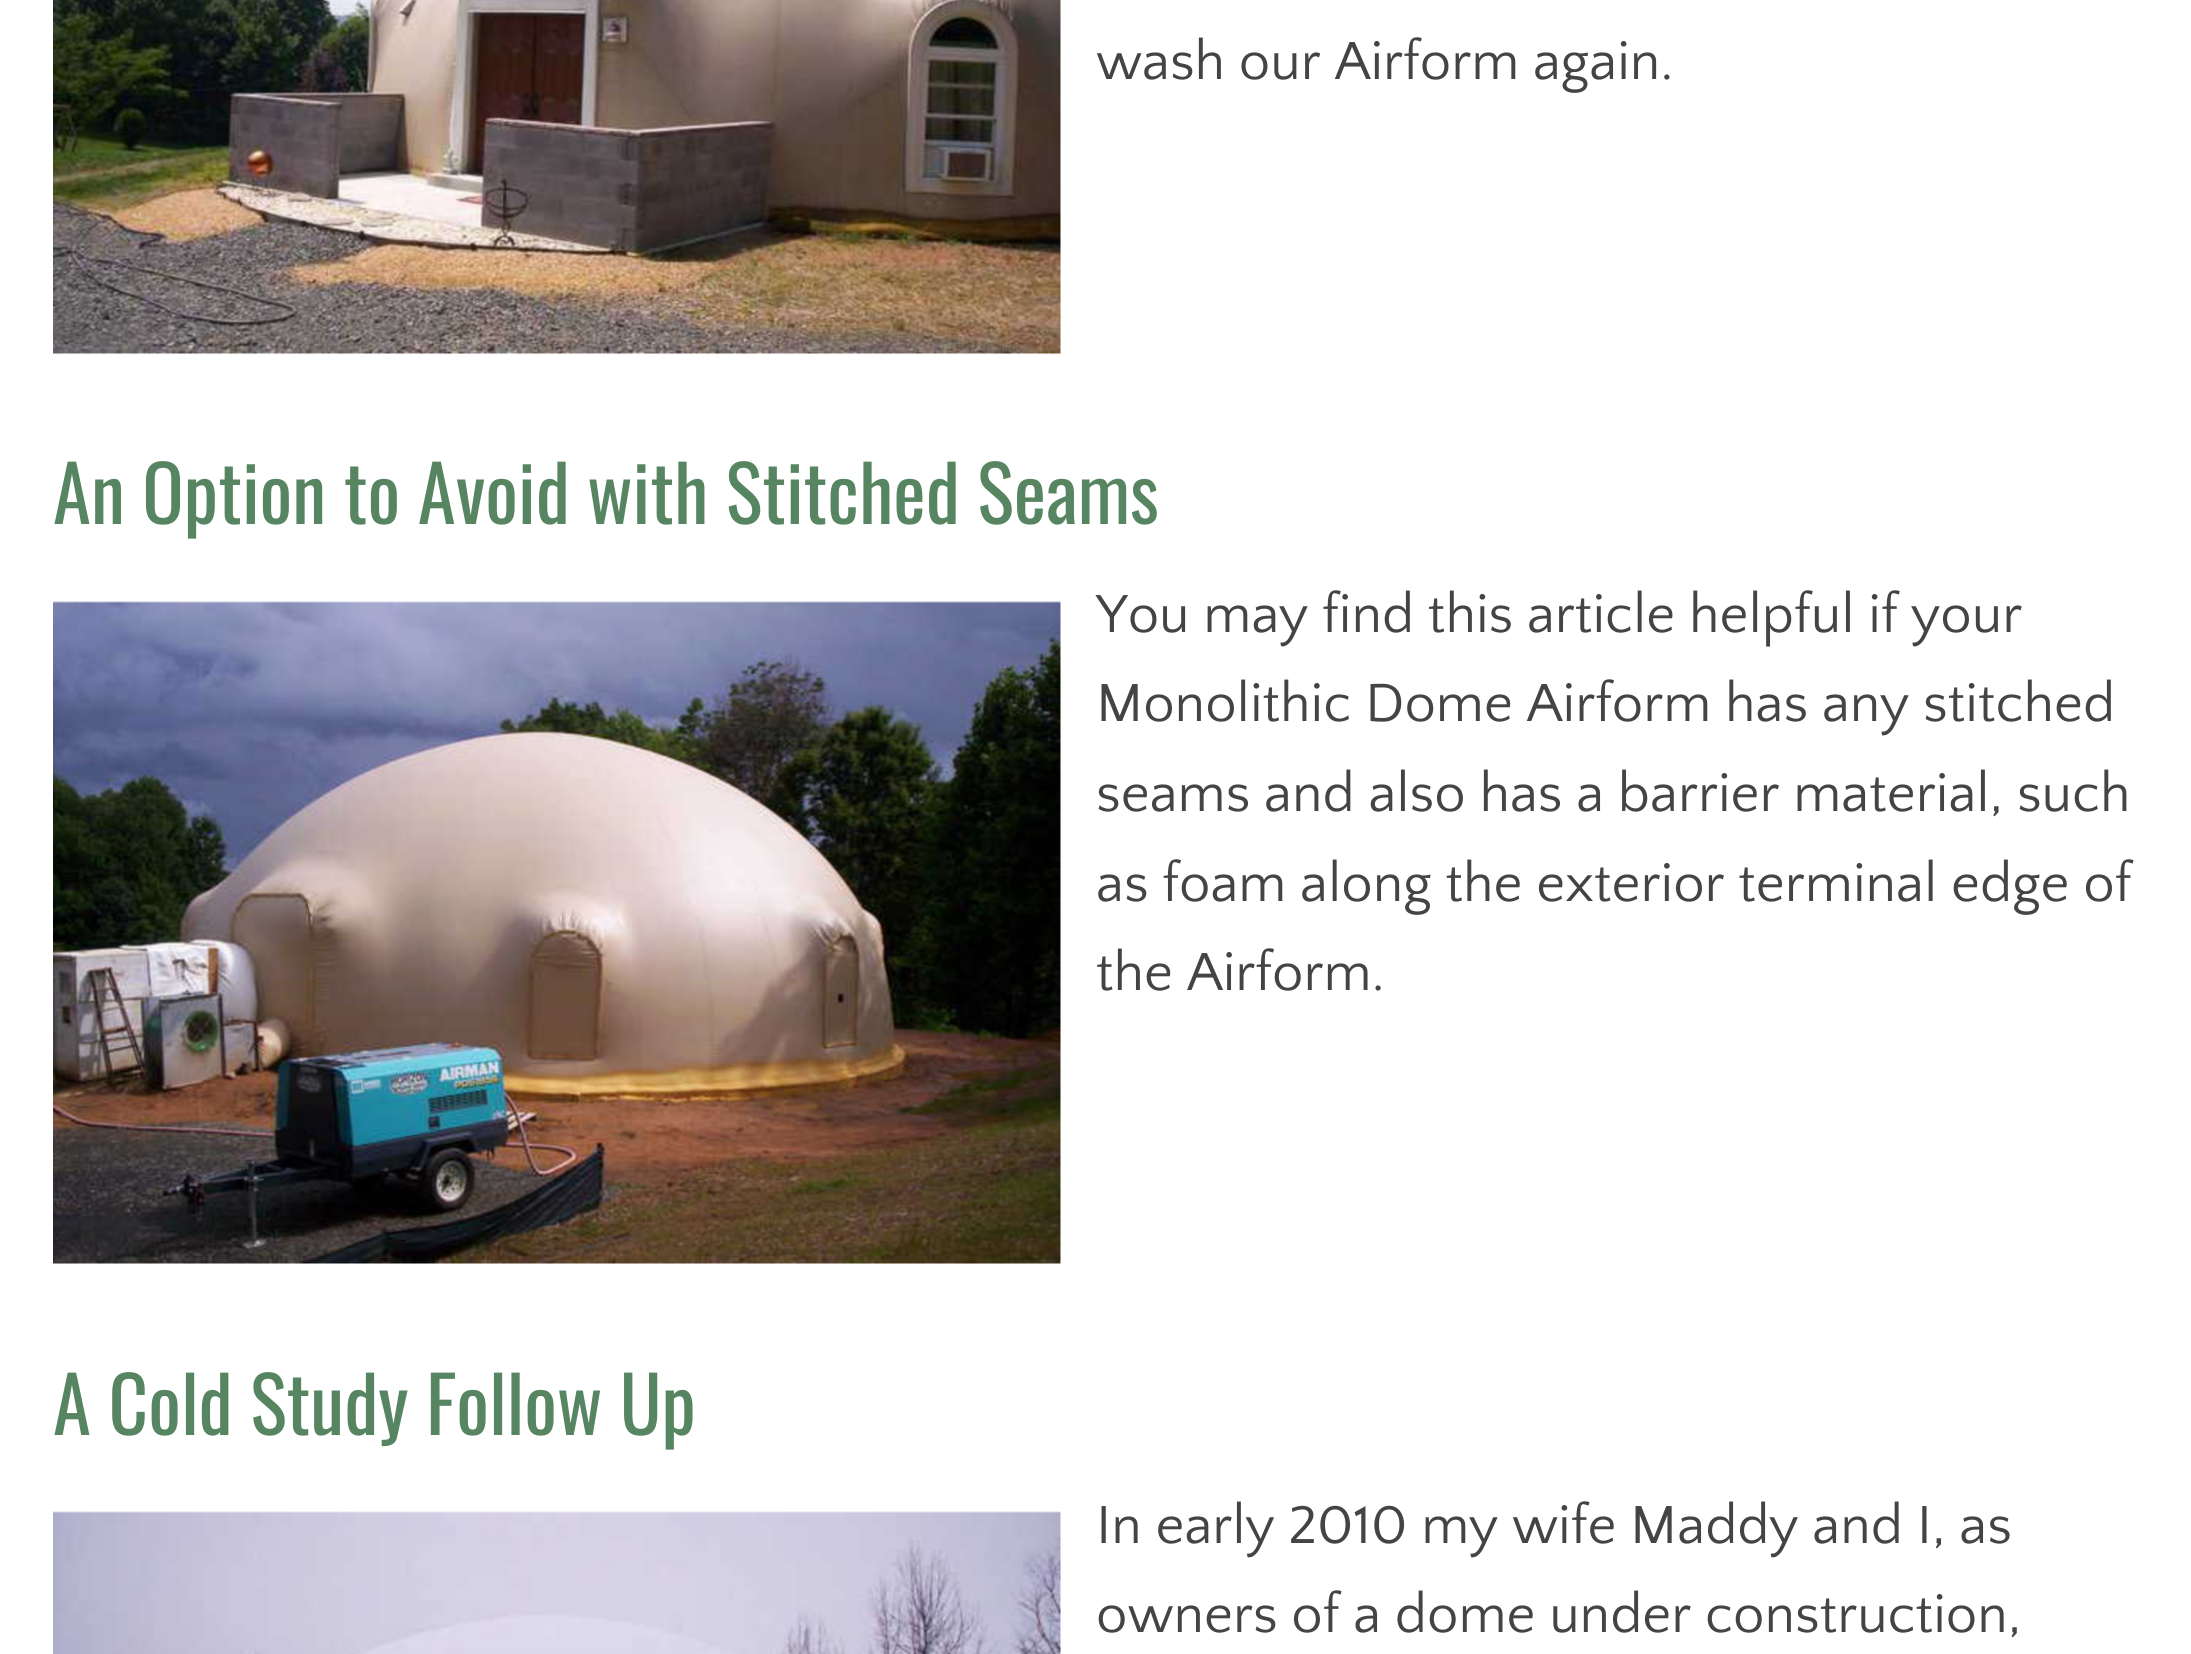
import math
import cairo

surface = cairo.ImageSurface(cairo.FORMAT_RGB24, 2191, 1654)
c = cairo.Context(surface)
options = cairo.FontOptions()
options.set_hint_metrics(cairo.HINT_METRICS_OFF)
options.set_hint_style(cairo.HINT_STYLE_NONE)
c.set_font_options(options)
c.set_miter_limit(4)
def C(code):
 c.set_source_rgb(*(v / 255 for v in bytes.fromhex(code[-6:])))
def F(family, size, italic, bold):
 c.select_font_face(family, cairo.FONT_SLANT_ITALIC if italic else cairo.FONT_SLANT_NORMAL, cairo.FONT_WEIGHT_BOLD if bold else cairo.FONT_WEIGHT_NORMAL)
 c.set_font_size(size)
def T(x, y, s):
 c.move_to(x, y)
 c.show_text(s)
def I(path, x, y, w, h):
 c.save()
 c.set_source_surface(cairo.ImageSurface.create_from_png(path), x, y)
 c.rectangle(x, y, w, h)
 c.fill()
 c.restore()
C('ffffff')
c.paint()
I('1.png',53,0,1008,354)
F('Quattrocento Sans',56,0,0)
C('444444')
T(1096,79,'wash our Airform again.')
F('Oswald',77,0,0)
C('578561')
T(53,524,'An Option to Avoid with Stitched Seams')
I('2.png',53,601,1008,663)
F('Quattrocento Sans',56,0,0)
C('444444')
T(1096,632,'You may find this article helpful if your')
T(1096,721,'Monolithic Dome Airform has any stitched')
T(1096,811,'seams and also has a barrier material, such')
T(1096,901,'as foam along the exterior terminal edge of')
T(1096,990,'the Airform.')
F('Oswald',77,0,0)
C('578561')
T(53,1435,'A Cold Study Follow Up')
I('3.png',53,1511,1008,143)
F('Quattrocento Sans',56,0,0)
C('444444')
T(1096,1543,'In early 2010 my wife Maddy and I, as')
T(1096,1632,'owners of a dome under construction,')
surface.write_to_png('o.png')
